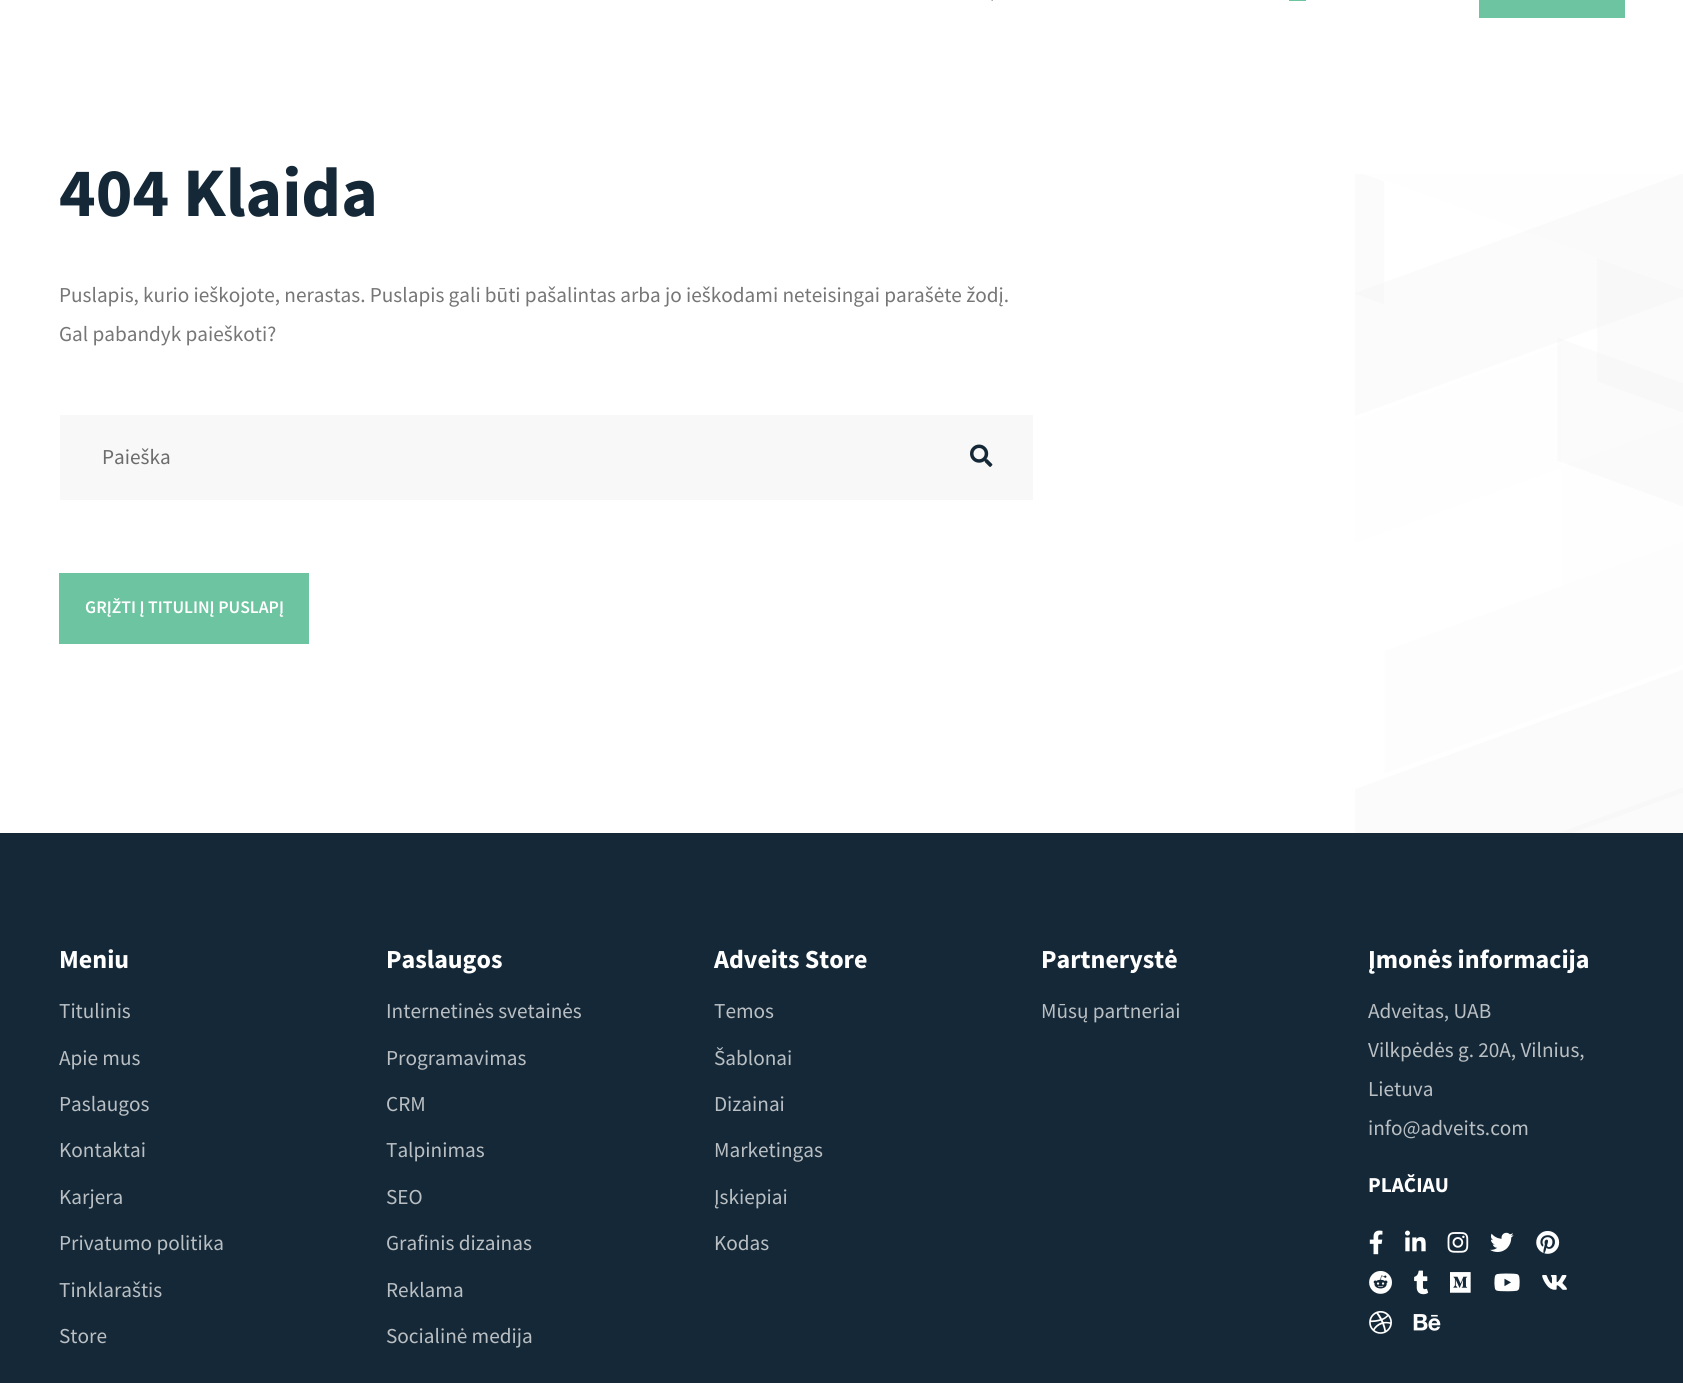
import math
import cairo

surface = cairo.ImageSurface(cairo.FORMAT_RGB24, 1683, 1383)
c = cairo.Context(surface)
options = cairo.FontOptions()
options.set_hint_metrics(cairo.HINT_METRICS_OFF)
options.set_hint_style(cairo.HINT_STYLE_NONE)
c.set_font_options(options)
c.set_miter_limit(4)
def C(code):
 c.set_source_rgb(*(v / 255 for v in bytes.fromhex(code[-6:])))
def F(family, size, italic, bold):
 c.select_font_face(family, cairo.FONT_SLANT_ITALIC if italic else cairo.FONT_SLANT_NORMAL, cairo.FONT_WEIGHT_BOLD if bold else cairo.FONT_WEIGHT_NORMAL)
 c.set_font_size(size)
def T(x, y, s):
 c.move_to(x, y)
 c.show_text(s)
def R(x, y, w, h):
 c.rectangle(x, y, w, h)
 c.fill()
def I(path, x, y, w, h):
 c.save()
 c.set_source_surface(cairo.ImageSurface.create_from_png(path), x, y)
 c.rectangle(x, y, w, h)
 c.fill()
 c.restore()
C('ffffff')
c.paint()
I('1.png',991,0,2,1)
C('6dc4a1')
R(1289,0,17,1)
R(1479,0,146,18)
F('Source Sans Pro',69.5,0,1)
C('152837')
T(59,216,'404 Klaida')
I('2.png',1355,174,328,659)
F('Source Sans Pro',21.25,0,0)
C('767676')
T(59,302,'Puslapis, kurio ieškojote, nerastas. Puslapis gali būti pašalintas arba jo ieškodami neteisingai parašėte žodį.')
T(59,341,'Gal pabandyk paieškoti?')
C('f8f8f8')
R(60,415,973,85)
C('6c6c6c')
T(102,464,'Paieška')
I('3.png',970,444,23,23)
C('6dc4a1')
R(59,573,250,71)
F('Source Sans Pro SemiBold',17.75,0,0)
C('ffffff')
T(85,613,'GRĮŽTI Į TITULINĮ PUSLAPĮ')
C('152837')
R(0,833,1683,550)
F('Source Sans Pro',26,0,1)
C('ffffff')
T(59,968,'Meniu')
F('Source Sans Pro',21.25,0,0)
C('b9bfc3')
T(59,1018,'Titulinis')
T(59,1065,'Apie mus')
T(59,1111,'Paslaugos')
T(59,1157,'Kontaktai')
T(59,1204,'Karjera')
T(59,1250,'Privatumo politika')
T(59,1297,'Tinklaraštis')
T(59,1343,'Store')
F('Source Sans Pro',26,0,1)
C('ffffff')
T(386,968,'Paslaugos')
F('Source Sans Pro',21.25,0,0)
C('b9bfc3')
T(386,1018,'Internetinės svetainės')
T(386,1065,'Programavimas')
T(386,1111,'CRM')
T(386,1157,'Talpinimas')
T(386,1204,'SEO')
T(386,1250,'Grafinis dizainas')
T(386,1297,'Reklama')
T(386,1343,'Socialinė medija')
F('Source Sans Pro',26,0,1)
C('ffffff')
T(714,968,'Adveits Store')
F('Source Sans Pro',21.25,0,0)
C('b9bfc3')
T(714,1018,'Temos')
T(714,1065,'Šablonai')
T(714,1111,'Dizainai')
T(714,1157,'Marketingas')
T(714,1204,'Įskiepiai')
T(714,1250,'Kodas')
F('Source Sans Pro',26,0,1)
C('ffffff')
T(1041,968,'Partnerystė')
F('Source Sans Pro',21.25,0,0)
C('b9bfc3')
T(1041,1018,'Mūsų partneriai')
F('Source Sans Pro',26,0,1)
C('ffffff')
T(1368,968,'Įmonės informacija')
F('Source Sans Pro',21.25,0,0)
C('b9bfc3')
T(1368,1018,'Adveitas, UAB')
T(1368,1057,'Vilkpėdės g. 20A, Vilnius,')
T(1368,1096,'Lietuva')
T(1368,1135,'info@adveits.com')
F('Source Sans Pro',21.25,0,1)
C('ffffff')
T(1368,1192,'PLAČIAU')
I('4.png',1369,1230,14,25)
I('5.png',1405,1230,21,22)
I('6.png',1447,1232,22,21)
I('7.png',1490,1232,24,20)
I('8.png',1536,1231,24,23)
I('9.png',1369,1271,23,23)
I('10.png',1414,1270,15,25)
I('11.png',1450,1272,21,21)
I('12.png',1494,1273,26,19)
I('13.png',1542,1275,25,15)
I('14.png',1369,1311,23,23)
I('15.png',1413,1314,28,17)
surface.write_to_png('o.png')
